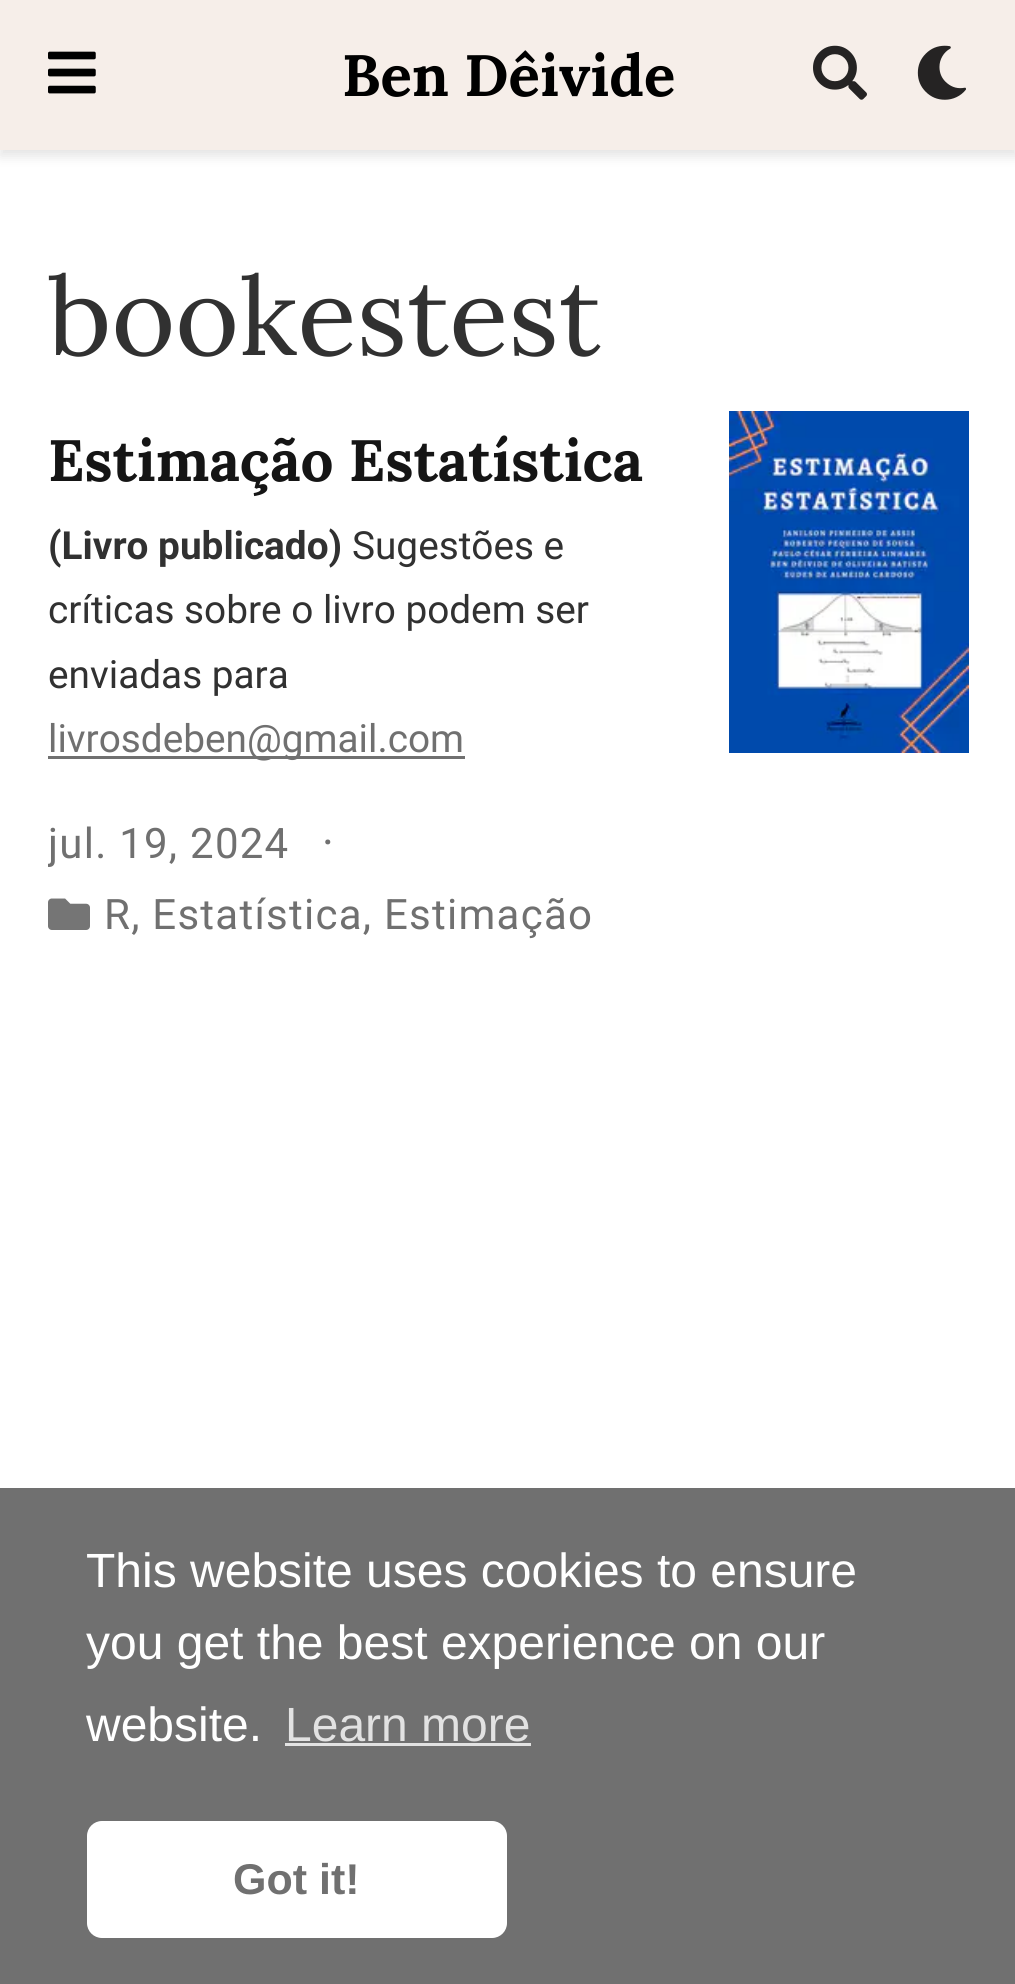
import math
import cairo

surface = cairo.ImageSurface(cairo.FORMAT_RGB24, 1015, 1984)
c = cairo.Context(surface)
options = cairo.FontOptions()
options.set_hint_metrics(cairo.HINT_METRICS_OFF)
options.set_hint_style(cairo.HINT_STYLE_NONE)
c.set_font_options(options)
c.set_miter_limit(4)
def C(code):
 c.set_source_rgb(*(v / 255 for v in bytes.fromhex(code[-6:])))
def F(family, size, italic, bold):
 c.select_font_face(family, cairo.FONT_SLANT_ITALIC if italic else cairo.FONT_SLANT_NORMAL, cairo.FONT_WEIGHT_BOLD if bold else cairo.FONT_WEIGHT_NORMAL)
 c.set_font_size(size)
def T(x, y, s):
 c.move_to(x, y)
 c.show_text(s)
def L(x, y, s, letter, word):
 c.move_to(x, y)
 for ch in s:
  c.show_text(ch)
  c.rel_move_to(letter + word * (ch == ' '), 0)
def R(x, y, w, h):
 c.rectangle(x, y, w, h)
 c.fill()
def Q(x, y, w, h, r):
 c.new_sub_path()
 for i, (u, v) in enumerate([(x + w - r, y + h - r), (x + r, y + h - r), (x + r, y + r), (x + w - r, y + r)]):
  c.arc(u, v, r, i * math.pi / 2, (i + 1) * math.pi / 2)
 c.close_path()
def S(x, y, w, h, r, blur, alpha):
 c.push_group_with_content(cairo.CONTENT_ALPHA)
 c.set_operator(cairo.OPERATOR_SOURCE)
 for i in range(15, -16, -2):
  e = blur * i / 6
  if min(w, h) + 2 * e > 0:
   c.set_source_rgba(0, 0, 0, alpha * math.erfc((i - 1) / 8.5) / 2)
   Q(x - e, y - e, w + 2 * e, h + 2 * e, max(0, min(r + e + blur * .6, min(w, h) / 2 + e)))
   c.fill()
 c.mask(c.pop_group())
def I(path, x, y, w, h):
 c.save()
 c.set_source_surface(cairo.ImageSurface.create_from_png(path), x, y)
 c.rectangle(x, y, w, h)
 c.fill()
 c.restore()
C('ffffff')
c.paint()
C('000000')
S(0,6,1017,150,0,6,.11)
C('f6eee9')
R(0,0,1015,150)
I('1.png',48,51,48,43)
F('Lora',58.25,0,1)
C('000000')
T(342,96,'Ben Dêivide')
I('2.png',813,45,54,55)
I('3.png',917,45,49,55)
F('Lora',109,0,0)
C('313131')
T(48,355,'bookestest')
F('Lora',58.25,0,1)
C('151515')
T(48,481,'Estimação Estatística')
F('Roboto',38.75,0,1)
C('313131')
T(48,559,'(Livro publicado)')
F('Roboto',38.75,0,0)
T(352,559,'Sugestões e')
T(48,623,'críticas sobre o livro podem ser')
T(48,688,'enviadas para')
C('707070')
R(48,756,417,3)
T(48,752,'livrosdeben@gmail.com')
c.save()
c.rectangle(48,807,633,144)
c.clip()
F('Roboto',42,0,0)
L(48,858,'jul. 19, 2024',1.25,0)
c.restore()
F('Roboto',45,0,0)
L(322,858,'·',1.25,0)
I('4.png',48,898,42,32)
F('Roboto',42,0,0)
L(104,929,'R, Estatística, Estimação',1.25,0)
I('5.png',729,411,240,342)
R(0,1488,1015,496)
F('Liberation Sans',48,0,0)
C('ffffff')
T(86,1587,'This website uses cookies to ensure')
T(86,1659,'you get the best experience on our')
T(86,1741,'website.')
C('e2e2e2')
T(285,1741,'Learn more')
R(285,1743,246,3)
C('ffffff')
Q(87,1821,420,117,15)
c.fill()
F('Liberation Sans',43,0,1)
C('707070')
T(233,1894,'Got it!')
surface.write_to_png('o.png')
